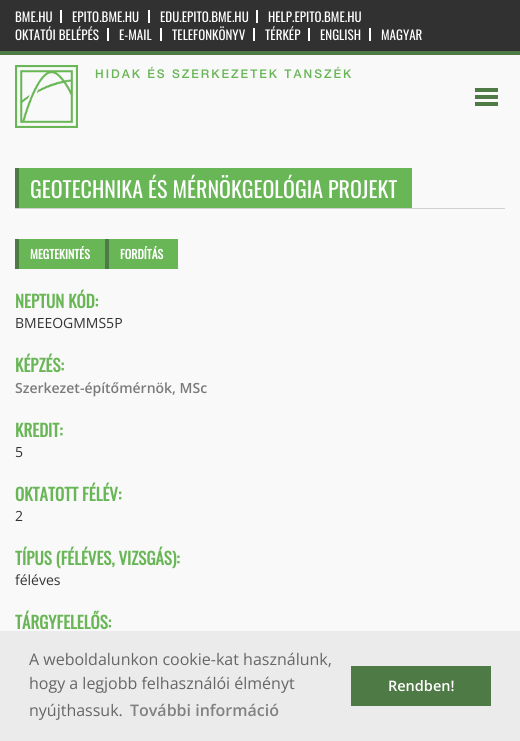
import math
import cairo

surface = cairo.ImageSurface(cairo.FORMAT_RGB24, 520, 741)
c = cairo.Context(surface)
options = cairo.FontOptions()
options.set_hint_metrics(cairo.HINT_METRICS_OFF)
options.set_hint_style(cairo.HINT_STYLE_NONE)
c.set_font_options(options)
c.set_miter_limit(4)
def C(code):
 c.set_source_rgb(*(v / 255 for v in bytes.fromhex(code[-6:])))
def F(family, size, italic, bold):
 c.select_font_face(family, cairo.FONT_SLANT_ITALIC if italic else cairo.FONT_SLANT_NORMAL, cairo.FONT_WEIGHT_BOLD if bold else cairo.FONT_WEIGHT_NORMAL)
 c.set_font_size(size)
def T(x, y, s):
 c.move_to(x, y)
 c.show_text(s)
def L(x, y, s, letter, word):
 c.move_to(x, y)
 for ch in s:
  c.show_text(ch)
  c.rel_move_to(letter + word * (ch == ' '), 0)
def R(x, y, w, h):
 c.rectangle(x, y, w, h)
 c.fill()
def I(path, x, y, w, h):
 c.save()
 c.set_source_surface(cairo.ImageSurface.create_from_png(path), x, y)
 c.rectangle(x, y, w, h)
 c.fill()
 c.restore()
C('f9f9fa')
c.paint()
C('313131')
R(0,0,520,51)
C('4e7a45')
R(0,51,520,4)
F('Oswald',13,0,0)
C('ffffff')
T(15,22,'BME.HU')
R(60,10,2,13)
T(72,22,'EPITO.BME.HU')
R(148,10,2,13)
T(160,22,'EDU.EPITO.BME.HU')
R(256,10,2,13)
T(268,22,'HELP.EPITO.BME.HU')
T(15,40,'OKTATÓI BELÉPÉS')
R(107,28,2,13)
T(119,40,'E-MAIL')
R(160,28,2,13)
T(172,40,'TELEFONKÖNYV')
R(253,28,2,13)
T(265,40,'TÉRKÉP')
R(308,28,2,13)
T(320,40,'ENGLISH')
R(369,28,2,13)
T(381,40,'MAGYAR')
I('1.png',15,65,63,63)
F('Helvetica Neue Medium',12,0,0)
C('69b656')
L(95,78,'HIDAK ÉS SZERKEZETEK TANSZÉK',2,0)
C('4e7a45')
R(475,88,23,4)
R(475,95,23,4)
R(475,102,23,4)
C('d2d2d2')
R(15,208,490,1)
C('69b656')
R(19,168,393,40)
C('4e7a45')
R(15,168,4,40)
F('Oswald',22,0,0)
C('ffffff')
T(30,198,'GEOTECHNIKA ÉS MÉRNÖKGEOLÓGIA PROJEKT')
C('69b656')
R(19,239,86,30)
C('4e7a45')
R(15,239,4,30)
F('Oswald',12,0,1)
C('ffffff')
T(30,259,'MEGTEKINTÉS')
C('69b656')
R(109,239,69,30)
C('4e7a45')
R(105,239,4,30)
C('ffffff')
T(120,259,'FORDÍTÁS')
F('Oswald',17,0,1)
C('69b656')
T(15,308,'NEPTUN KÓD:')
F('Open Sans',14,0,0)
C('333333')
T(15,328,'BMEEOGMMS5P')
F('Oswald',17,0,1)
C('69b656')
T(15,372,'KÉPZÉS:')
F('Open Sans SemiBold',14,0,0)
C('7b7b7b')
T(15,393,'Szerkezet-építőmérnök, MSc')
F('Oswald',17,0,1)
C('69b656')
T(15,437,'KREDIT:')
F('Open Sans',14,0,0)
C('333333')
T(15,457,'5')
F('Oswald',17,0,1)
C('69b656')
T(15,501,'OKTATOTT FÉLÉV:')
F('Open Sans',14,0,0)
C('333333')
T(15,521,'2')
F('Oswald',17,0,1)
C('69b656')
T(15,565,'TÍPUS (FÉLÉVES, VIZSGÁS):')
F('Open Sans',14,0,0)
C('333333')
T(15,585,'féléves')
F('Oswald',17,0,1)
C('69b656')
T(15,629,'TÁRGYFELELŐS:')
C('ebebeb')
R(0,631,520,110)
F('Open Sans',16,0,0)
C('666666')
T(29,665,'A weboldalunkon cookie-kat használunk,')
T(29,689,'hogy a legjobb felhasználói élményt')
T(29,716,'nyújthassuk.')
F('Open Sans SemiBold',16,0,0)
C('818181')
T(130,716,'További információ')
C('4e7a45')
R(351,666,140,40)
F('Open Sans SemiBold',14.5,0,0)
C('ffffff')
T(388,691,'Rendben!')
surface.write_to_png('o.png')
